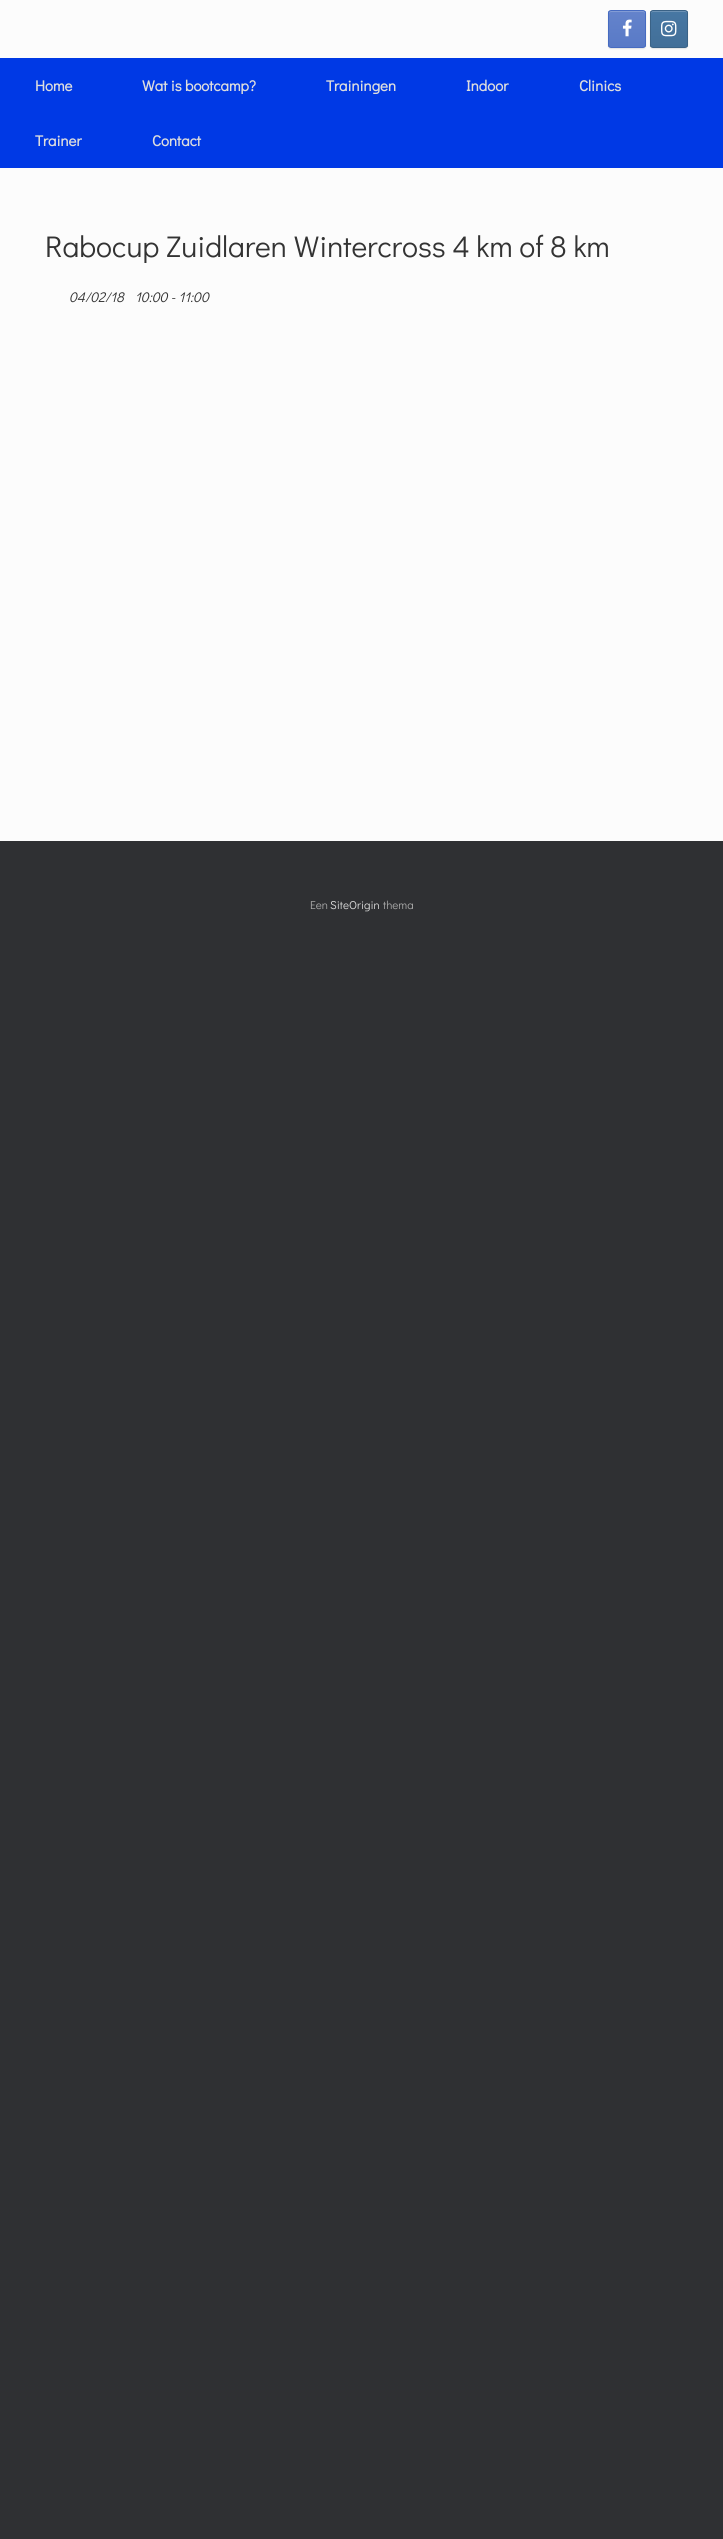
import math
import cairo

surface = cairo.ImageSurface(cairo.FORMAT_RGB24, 723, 2539)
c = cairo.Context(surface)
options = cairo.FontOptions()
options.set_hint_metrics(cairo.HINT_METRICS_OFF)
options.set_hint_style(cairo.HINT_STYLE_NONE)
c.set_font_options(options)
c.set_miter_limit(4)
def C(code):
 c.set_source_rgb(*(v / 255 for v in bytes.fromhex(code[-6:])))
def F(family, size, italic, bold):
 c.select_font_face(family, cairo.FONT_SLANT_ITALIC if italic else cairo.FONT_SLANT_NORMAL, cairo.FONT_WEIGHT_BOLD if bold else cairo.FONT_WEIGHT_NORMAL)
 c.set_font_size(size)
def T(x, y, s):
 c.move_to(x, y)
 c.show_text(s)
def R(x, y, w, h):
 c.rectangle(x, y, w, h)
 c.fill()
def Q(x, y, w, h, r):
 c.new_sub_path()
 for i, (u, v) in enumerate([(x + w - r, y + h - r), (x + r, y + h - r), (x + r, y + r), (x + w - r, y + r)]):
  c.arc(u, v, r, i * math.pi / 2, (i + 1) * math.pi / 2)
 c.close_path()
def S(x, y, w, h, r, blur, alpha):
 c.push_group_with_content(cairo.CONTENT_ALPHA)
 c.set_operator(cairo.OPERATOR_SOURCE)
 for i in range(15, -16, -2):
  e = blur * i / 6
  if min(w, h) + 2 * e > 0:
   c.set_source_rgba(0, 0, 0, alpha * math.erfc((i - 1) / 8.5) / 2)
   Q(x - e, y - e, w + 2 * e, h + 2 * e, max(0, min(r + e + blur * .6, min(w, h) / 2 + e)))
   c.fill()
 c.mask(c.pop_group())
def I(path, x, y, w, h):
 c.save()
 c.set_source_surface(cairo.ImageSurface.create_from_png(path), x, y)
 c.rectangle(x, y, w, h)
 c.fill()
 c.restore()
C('2f3033')
c.paint()
C('fcfcfc')
R(0,0,723,58)
C('000000')
S(608,11,38,38,3,.5,.1)
c.save()
Q(608,10,38,38,3)
c.clip()
gradient = cairo.LinearGradient(627,47,627,11)
gradient.add_color_stop_rgba(0,0.349,0.478,0.78,1)
gradient.add_color_stop_rgba(1,0.392,0.514,0.796,1)
c.set_source(gradient)
R(608,11,38,36)
c.restore()
C('839cd5')
c.new_path()
c.move_to(611,12)
c.line_to(643,12)
c.curve_to(644,12,645,13,645,14)
c.curve_to(645,9.5,641.5,11,637.5,11)
c.line_to(616.5,11)
c.curve_to(612.5,11,609,9.5,609,14)
c.curve_to(609,13,610,12,611,12)
c.close_path()
c.fill()
Q(608.5,10.5,37,37,2.5)
C('466bc1')
c.set_line_width(1)
c.stroke()
I('1.png',622,19,10,18)
C('000000')
S(650,11,38,38,3,.5,.1)
c.save()
Q(650,10,38,38,3)
c.clip()
gradient = cairo.LinearGradient(669,47,669,11)
gradient.add_color_stop_rgba(0,0.259,0.435,0.596,1)
gradient.add_color_stop_rgba(1,0.278,0.467,0.639,1)
c.set_source(gradient)
R(650,11,38,36)
c.restore()
C('6c92b5')
c.new_path()
c.move_to(653,12)
c.line_to(685,12)
c.curve_to(686,12,687,13,687,14)
c.curve_to(687,9.5,683.5,11,679.5,11)
c.line_to(658.5,11)
c.curve_to(654.5,11,651,9.5,651,14)
c.curve_to(651,13,652,12,653,12)
c.close_path()
c.fill()
Q(650.5,10.5,37,37,2.5)
C('3a6286')
c.stroke()
I('2.png',661,20,16,17)
C('0039e5')
R(0,58,723,110)
F('Didact Gothic',15,0,1)
C('dddddd')
T(35,91,'Home')
T(142,91,'Wat is bootcamp?')
T(326,91,'Trainingen')
T(466,91,'Indoor')
T(579,91,'Clinics')
T(35,146,'Trainer')
T(152,146,'Contact')
C('fcfcfc')
R(0,168,723,673)
F('Didact Gothic',30,0,0)
C('333333')
T(45,257,'Rabocup Zuidlaren Wintercross 4 km of 8 km')
F('Didact Gothic',14,1,0)
T(69,302,'04/02/18')
T(135,302,'10:00 - 11:00')
F('Didact Gothic',11.5,0,0)
C('aaaaaa')
T(310,909,'Een')
C('dddddd')
T(330,909,'SiteOrigin')
C('aaaaaa')
T(383,909,'thema')
surface.write_to_png('o.png')
